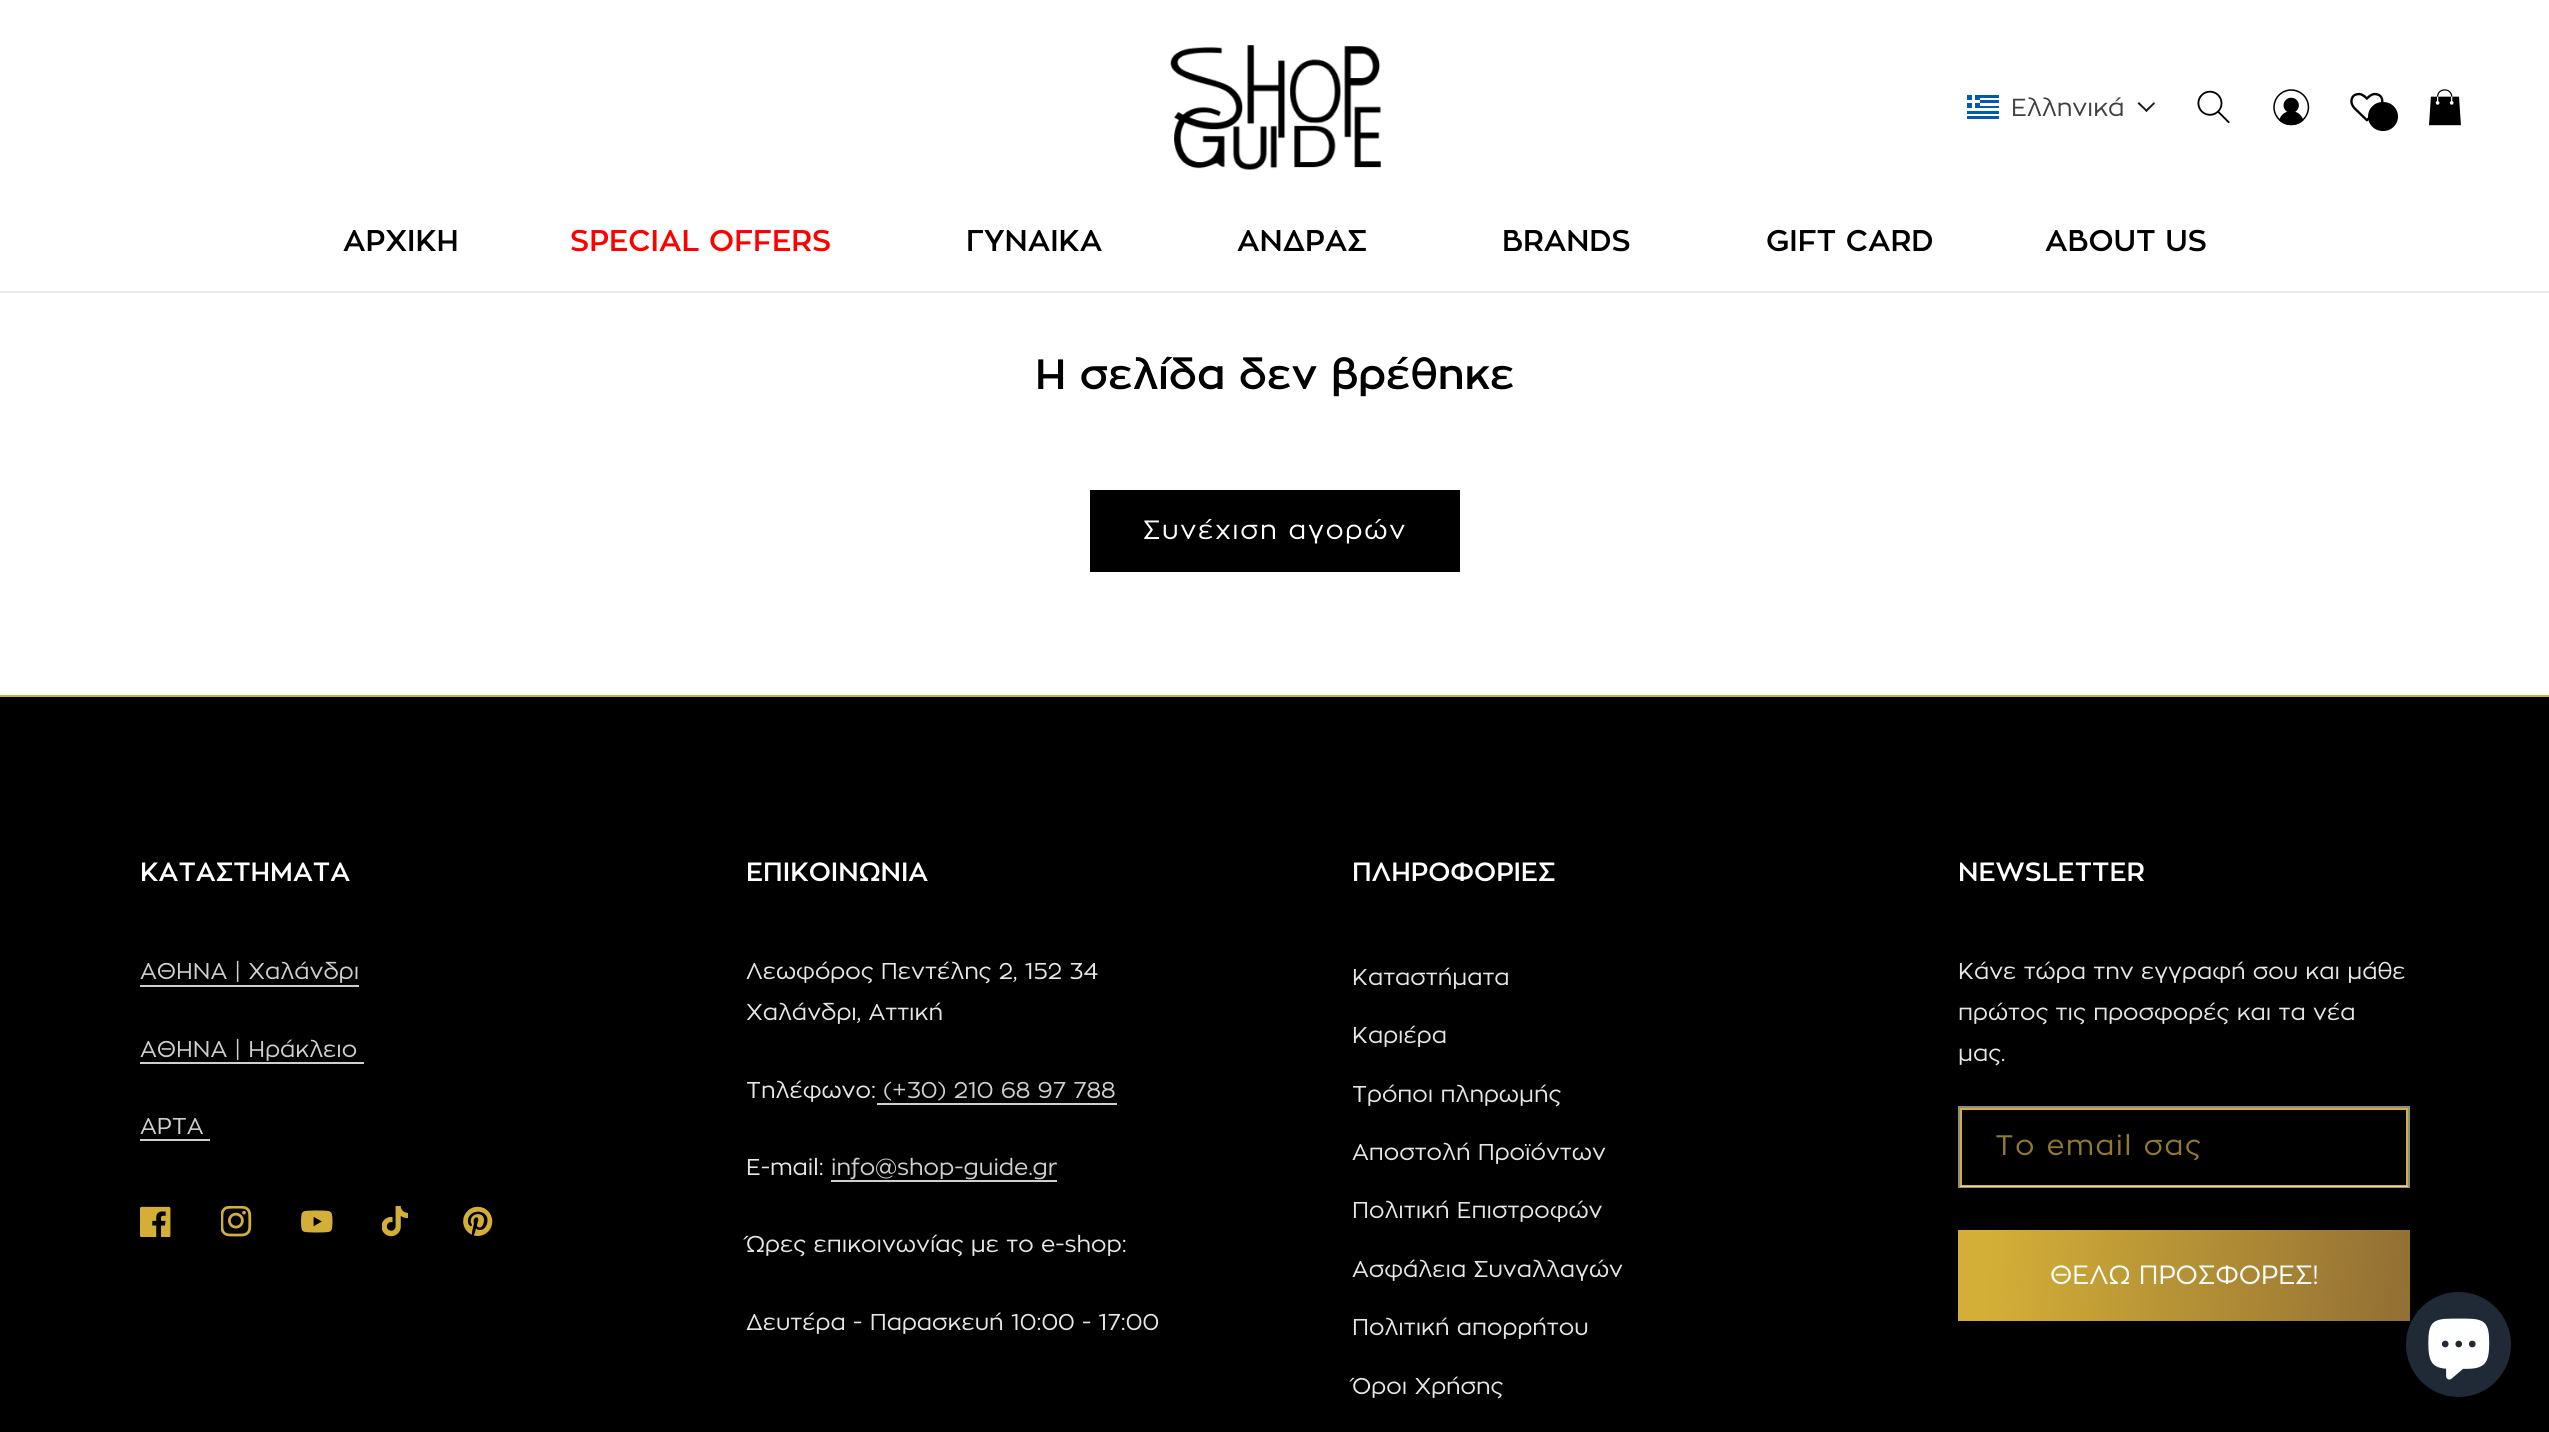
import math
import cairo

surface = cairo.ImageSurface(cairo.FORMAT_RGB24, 2549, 1432)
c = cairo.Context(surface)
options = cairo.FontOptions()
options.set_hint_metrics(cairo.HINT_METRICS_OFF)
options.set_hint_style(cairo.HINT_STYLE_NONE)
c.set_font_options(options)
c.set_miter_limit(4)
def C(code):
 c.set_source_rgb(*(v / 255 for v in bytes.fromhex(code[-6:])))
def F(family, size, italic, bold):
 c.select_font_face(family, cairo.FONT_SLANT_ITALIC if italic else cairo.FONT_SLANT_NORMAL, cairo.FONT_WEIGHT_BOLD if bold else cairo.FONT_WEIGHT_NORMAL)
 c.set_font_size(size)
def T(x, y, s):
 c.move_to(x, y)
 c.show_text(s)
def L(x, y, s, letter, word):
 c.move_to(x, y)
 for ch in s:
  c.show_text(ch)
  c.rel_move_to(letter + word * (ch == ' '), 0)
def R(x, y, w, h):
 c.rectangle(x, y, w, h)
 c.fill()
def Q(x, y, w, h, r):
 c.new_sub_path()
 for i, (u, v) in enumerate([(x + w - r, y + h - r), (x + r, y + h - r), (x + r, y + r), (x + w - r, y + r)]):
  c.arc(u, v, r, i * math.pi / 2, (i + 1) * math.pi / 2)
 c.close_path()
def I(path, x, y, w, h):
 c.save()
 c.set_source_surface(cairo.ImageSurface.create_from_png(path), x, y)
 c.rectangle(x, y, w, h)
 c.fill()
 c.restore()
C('ffffff')
c.paint()
C('ebebeb')
R(0,291,2549,2)
I('1.png',1170,45,211,125)
I('2.png',1967,95,32,24)
F('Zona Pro',24.5,0,0)
C('404040')
T(2011,116,'Ελληνικά')
C('1a1a1a')
c.new_path()
c.move_to(2154,102)
c.line_to(2155,103.5)
c.line_to(2146.5,112)
c.line_to(2145,110.5)
c.close_path()
c.fill()
c.new_path()
c.move_to(2139,102)
c.line_to(2147.5,110.5)
c.line_to(2146.5,112)
c.line_to(2137.5,103.5)
c.close_path()
c.fill()
I('3.png',2197,90,33,34)
I('4.png',2273,89,37,37)
I('5.png',2350,92,34,30)
C('000000')
Q(2368,102,30,29,14.5)
c.fill()
I('6.png',2429,89,32,37)
F('Zona Pro SemiBold',29.75,0,0)
T(343,251,'AΡΧΙΚΗ')
C('ff0000')
T(570,251,'SPECIAL OFFERS')
C('000000')
T(966,251,'ΓΥΝΑΙΚΑ')
T(1237,251,'ΑΝΔΡΑΣ')
T(1502,251,'BRANDS')
T(1766,251,'GIFT CARD')
T(2045,251,'ABOUT US')
F('Zona Pro SemiBold',42,0,0)
T(1035,389,'Η σελίδα δεν βρέθηκε')
R(1090,490,370,82)
F('Zona Pro',26.25,0,0)
C('ffffff')
L(1143,539,'Συνέχιση αγορών',1.75,0)
C('000000')
R(0,697,2549,735)
C('d4af37')
R(0,695,2549,2)
F('Zona Pro SemiBold',26.25,0,0)
C('ffffff')
T(140,881,'ΚΑΤΑΣΤΗΜΑΤΑ')
F('Zona Pro',22.75,0,0)
C('cfcfcf')
T(140,979,'ΑΘΗΝΑ | Χαλάνδρι')
R(140,985,219,2)
T(140,1057,'ΑΘΗΝΑ | Ηράκλειο')
R(140,1062,224,2)
T(140,1134,'ΑΡΤΑ')
R(140,1139,70,2)
I('7.png',140,1206,31,31)
I('8.png',221,1206,31,31)
I('9.png',301,1210,32,23)
I('10.png',382,1206,26,31)
I('11.png',463,1206,30,30)
F('Zona Pro SemiBold',26.25,0,0)
C('ffffff')
T(746,881,'ΕΠΙΚΟΙΝΩΝΙΑ')
F('Zona Pro',22.75,0,0)
C('e6e6e6')
T(746,979,'Λεωφόρος Πεντέλης 2, 152 34')
T(746,1020,'Χαλάνδρι, Αττική')
T(746,1098,'Τηλέφωνο:')
C('cfcfcf')
T(883,1098,'(+30) 210 68 97 788')
R(877,1103,240,2)
C('e6e6e6')
T(746,1175,'E-mail:')
C('cfcfcf')
T(831,1175,'info@shop-guide.gr')
R(831,1180,226,2)
C('e6e6e6')
T(746,1252,'Ώρες επικοινωνίας με το e-shop:')
T(746,1330,'Δευτέρα - Παρασκευή 10:00 - 17:00')
F('Zona Pro SemiBold',26.25,0,0)
C('ffffff')
T(1352,881,'ΠΛΗΡΟΦΟΡΙΕΣ')
F('Zona Pro',22.75,0,0)
C('e6e6e6')
T(1352,985,'Καταστήματα')
T(1352,1043,'Καριέρα')
T(1352,1102,'Τρόποι πληρωμής')
T(1352,1160,'Αποστολή Προϊόντων')
T(1352,1218,'Πολιτική Επιστροφών')
T(1352,1277,'Ασφάλεια Συναλλαγών')
T(1352,1335,'Πολιτική απορρήτου')
T(1352,1394,'Όροι Χρήσης')
F('Zona Pro SemiBold',26.25,0,0)
C('ffffff')
T(1958,881,'NEWSLETTER')
F('Zona Pro',22.75,0,0)
C('e6e6e6')
T(1958,979,'Κάνε τώρα την εγγραφή σου και μάθε')
T(1958,1020,'πρώτος τις προσφορές και τα νέα')
T(1958,1061,'μας.')
c.rectangle(1961,1109,446,77)
C('d4af37')
c.stroke()
c.rectangle(1959,1107,450,80)
c.set_source_rgba(1,1,1,0.55)
c.stroke()
F('Zona Pro',28,0,0)
C('947b27')
L(1995,1155,'Το email σας',1.75,0)
gradient = cairo.LinearGradient(1956,1259,2412,1293)
gradient.add_color_stop_rgba(.07,0.831,0.686,0.216,1)
gradient.add_color_stop_rgba(1,0.573,0.435,0.204,1)
c.set_source(gradient)
R(1958,1230,452,91)
F('Zona Pro',26.25,0,0)
C('ffffff')
T(2050,1284,'ΘΕΛΩ ΠΡΟΣΦΟΡΕΣ!')
C('202a36')
c.new_path()
c.arc(2458.5,1344.5,52.5,0,2 * math.pi)
c.fill()
I('12.png',2428,1318,62,62)
surface.write_to_png('o.png')
